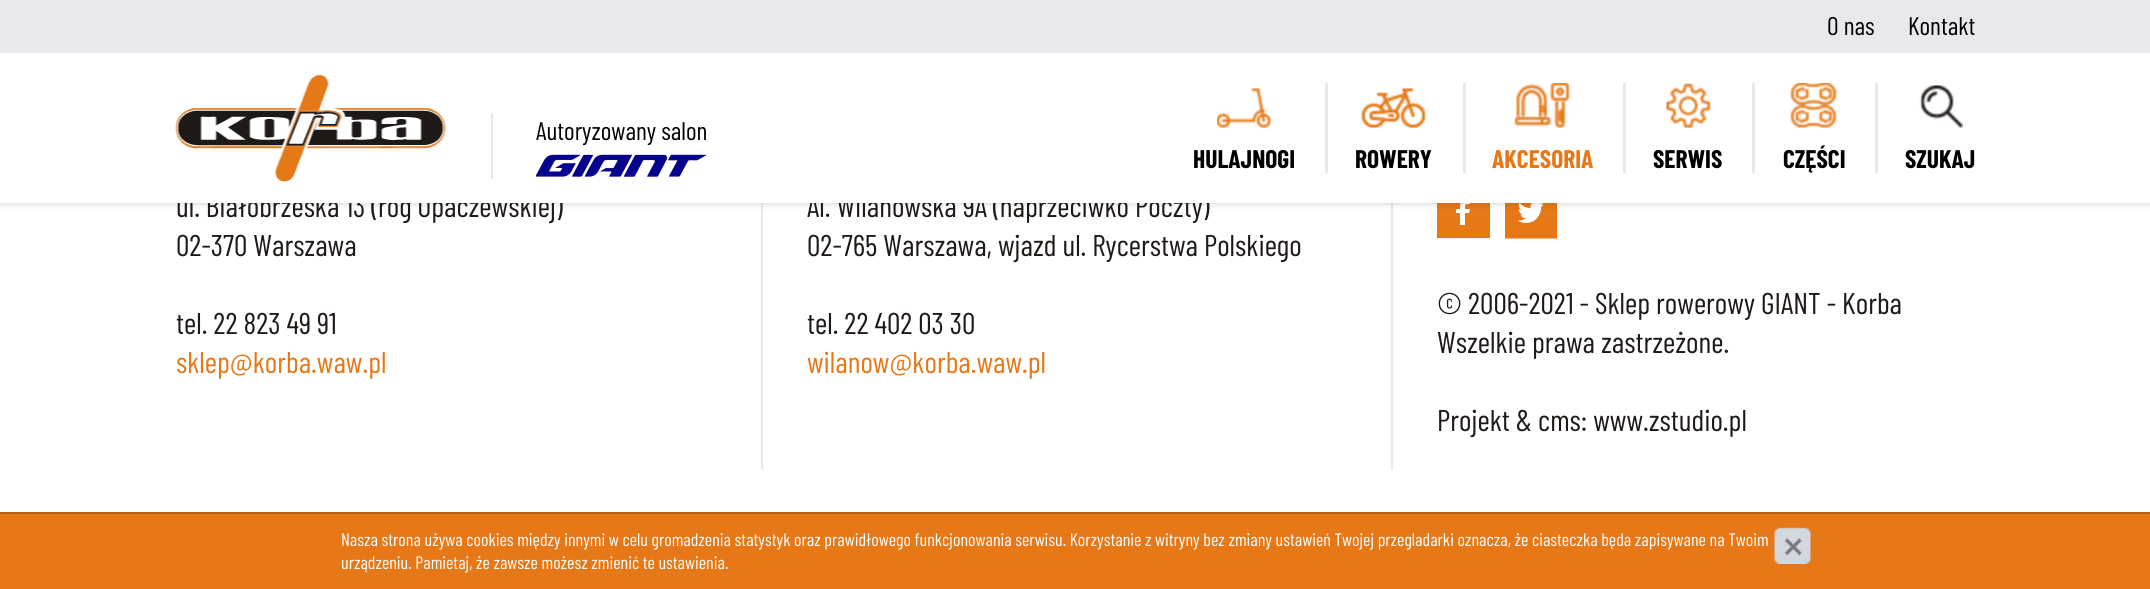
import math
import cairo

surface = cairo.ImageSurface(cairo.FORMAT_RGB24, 2150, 589)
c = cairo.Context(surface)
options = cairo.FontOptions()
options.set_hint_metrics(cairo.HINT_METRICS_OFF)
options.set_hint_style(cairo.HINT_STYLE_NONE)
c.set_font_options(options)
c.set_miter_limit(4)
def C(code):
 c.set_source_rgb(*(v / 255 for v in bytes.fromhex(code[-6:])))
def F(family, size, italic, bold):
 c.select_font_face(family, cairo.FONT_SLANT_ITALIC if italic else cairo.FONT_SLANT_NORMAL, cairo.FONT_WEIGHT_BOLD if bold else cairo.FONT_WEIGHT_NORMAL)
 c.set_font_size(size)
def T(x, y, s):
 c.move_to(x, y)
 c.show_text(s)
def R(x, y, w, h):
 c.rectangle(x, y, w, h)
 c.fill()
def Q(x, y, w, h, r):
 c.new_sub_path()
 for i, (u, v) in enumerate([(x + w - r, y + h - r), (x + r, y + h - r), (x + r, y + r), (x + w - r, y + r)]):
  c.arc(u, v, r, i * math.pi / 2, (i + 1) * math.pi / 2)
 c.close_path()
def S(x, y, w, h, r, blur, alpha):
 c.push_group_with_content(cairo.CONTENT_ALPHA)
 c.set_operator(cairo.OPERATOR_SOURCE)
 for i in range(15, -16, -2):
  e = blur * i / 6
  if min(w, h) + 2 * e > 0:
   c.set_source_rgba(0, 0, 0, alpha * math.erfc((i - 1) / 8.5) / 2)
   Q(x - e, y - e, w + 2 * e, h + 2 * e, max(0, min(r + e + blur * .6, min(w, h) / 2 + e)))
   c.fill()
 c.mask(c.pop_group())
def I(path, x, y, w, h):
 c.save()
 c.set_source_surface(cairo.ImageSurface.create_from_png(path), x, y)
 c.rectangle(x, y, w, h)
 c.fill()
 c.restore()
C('ffffff')
c.paint()
C('e7e9ed')
R(761,203,2,267)
R(1391,203,2,267)
C('e67817')
c.new_path()
c.move_to(1437,186)
c.line_to(1437,238)
c.line_to(1490,238)
c.line_to(1490,186)
c.close_path()
c.move_to(1470,204)
c.curve_to(1465,204,1465,204,1465,209)
c.line_to(1470,209)
c.line_to(1469,213)
c.line_to(1465,213)
c.line_to(1465,225)
c.line_to(1460,225)
c.line_to(1460,213)
c.line_to(1456,213)
c.line_to(1456,209)
c.line_to(1460,209)
c.curve_to(1460,201,1462,199,1470,199)
c.close_path()
c.fill()
I('9.png',1505,203,52,36)
C('000000')
S(0,0,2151,203,0,4,.2)
F('Barlow Condensed',30,0,0)
C('1f1a17')
T(176,217,'ul. Białobrzeska 13 (róg Opaczewskiej)')
T(807,217,'Al. Wilanowska 9A (naprzeciwko Poczty)')
C('ffffff')
R(0,53,2150,150)
C('e7e9ed')
R(0,0,2150,53)
F('Barlow Condensed',25.5,0,0)
C('000000')
T(1827,35,'O nas')
T(1908,35,'Kontakt')
I('1.png',175,75,271,107)
C('e7e9ed')
R(491,113,2,66)
C('000000')
T(536,140,'Autoryzowany salon')
I('2.png',536,154,171,23)
I('3.png',1217,88,54,40)
F('Barlow Condensed',25.5,0,1)
T(1193,168,'HULAJNOGI')
C('e7e9ed')
R(1325,83,3,90)
I('4.png',1361,88,65,40)
C('000000')
T(1355,168,'ROWERY')
C('e7e9ed')
R(1463,83,3,90)
I('5.png',1514,83,56,45)
C('e67817')
T(1492,168,'AKCESORIA')
C('e7e9ed')
R(1623,83,3,90)
I('6.png',1666,83,45,45)
C('000000')
T(1653,168,'SERWIS')
C('e7e9ed')
R(1752,83,3,90)
I('7.png',1790,83,47,45)
C('000000')
T(1783,168,'CZĘŚCI')
C('e7e9ed')
R(1875,83,3,90)
I('8.png',1919,85,44,43)
C('000000')
T(1905,168,'SZUKAJ')
F('Barlow Condensed',30,0,0)
C('1f1a17')
T(176,256,'02-370 Warszawa')
T(176,334,'tel. 22 823 49 91')
C('e67817')
T(176,373,'sklep@korba.waw.pl')
C('1f1a17')
T(807,256,'02-765 Warszawa, wjazd ul. Rycerstwa Polskiego')
T(807,334,'tel. 22 402 03 30')
C('e67817')
T(807,373,'wilanow@korba.waw.pl')
C('1f1a17')
T(1437,314,'© 2006-2021 - Sklep rowerowy GIANT - Korba')
T(1437,353,'Wszelkie prawa zastrzeżone.')
T(1437,431,'Projekt & cms: www.zstudio.pl')
C('e67817')
R(0,514,2150,75)
C('b86012')
R(0,512,2150,2)
F('Barlow Condensed',18,0,0)
C('ffffff')
T(341,546,'Nasza strona używa cookies między innymi w celu gromadzenia statystyk oraz prawidłowego funkcjonowania serwisu. Korzystanie z witryny bez zmiany ustawień Twojej przegladarki oznacza, że ciasteczka będa zapisywane na Twoim')
I('10.png',1774,527,37,37)
T(341,569,'urządzeniu. Pamietaj, że zawsze możesz zmienić te ustawienia.')
surface.write_to_png('o.png')
